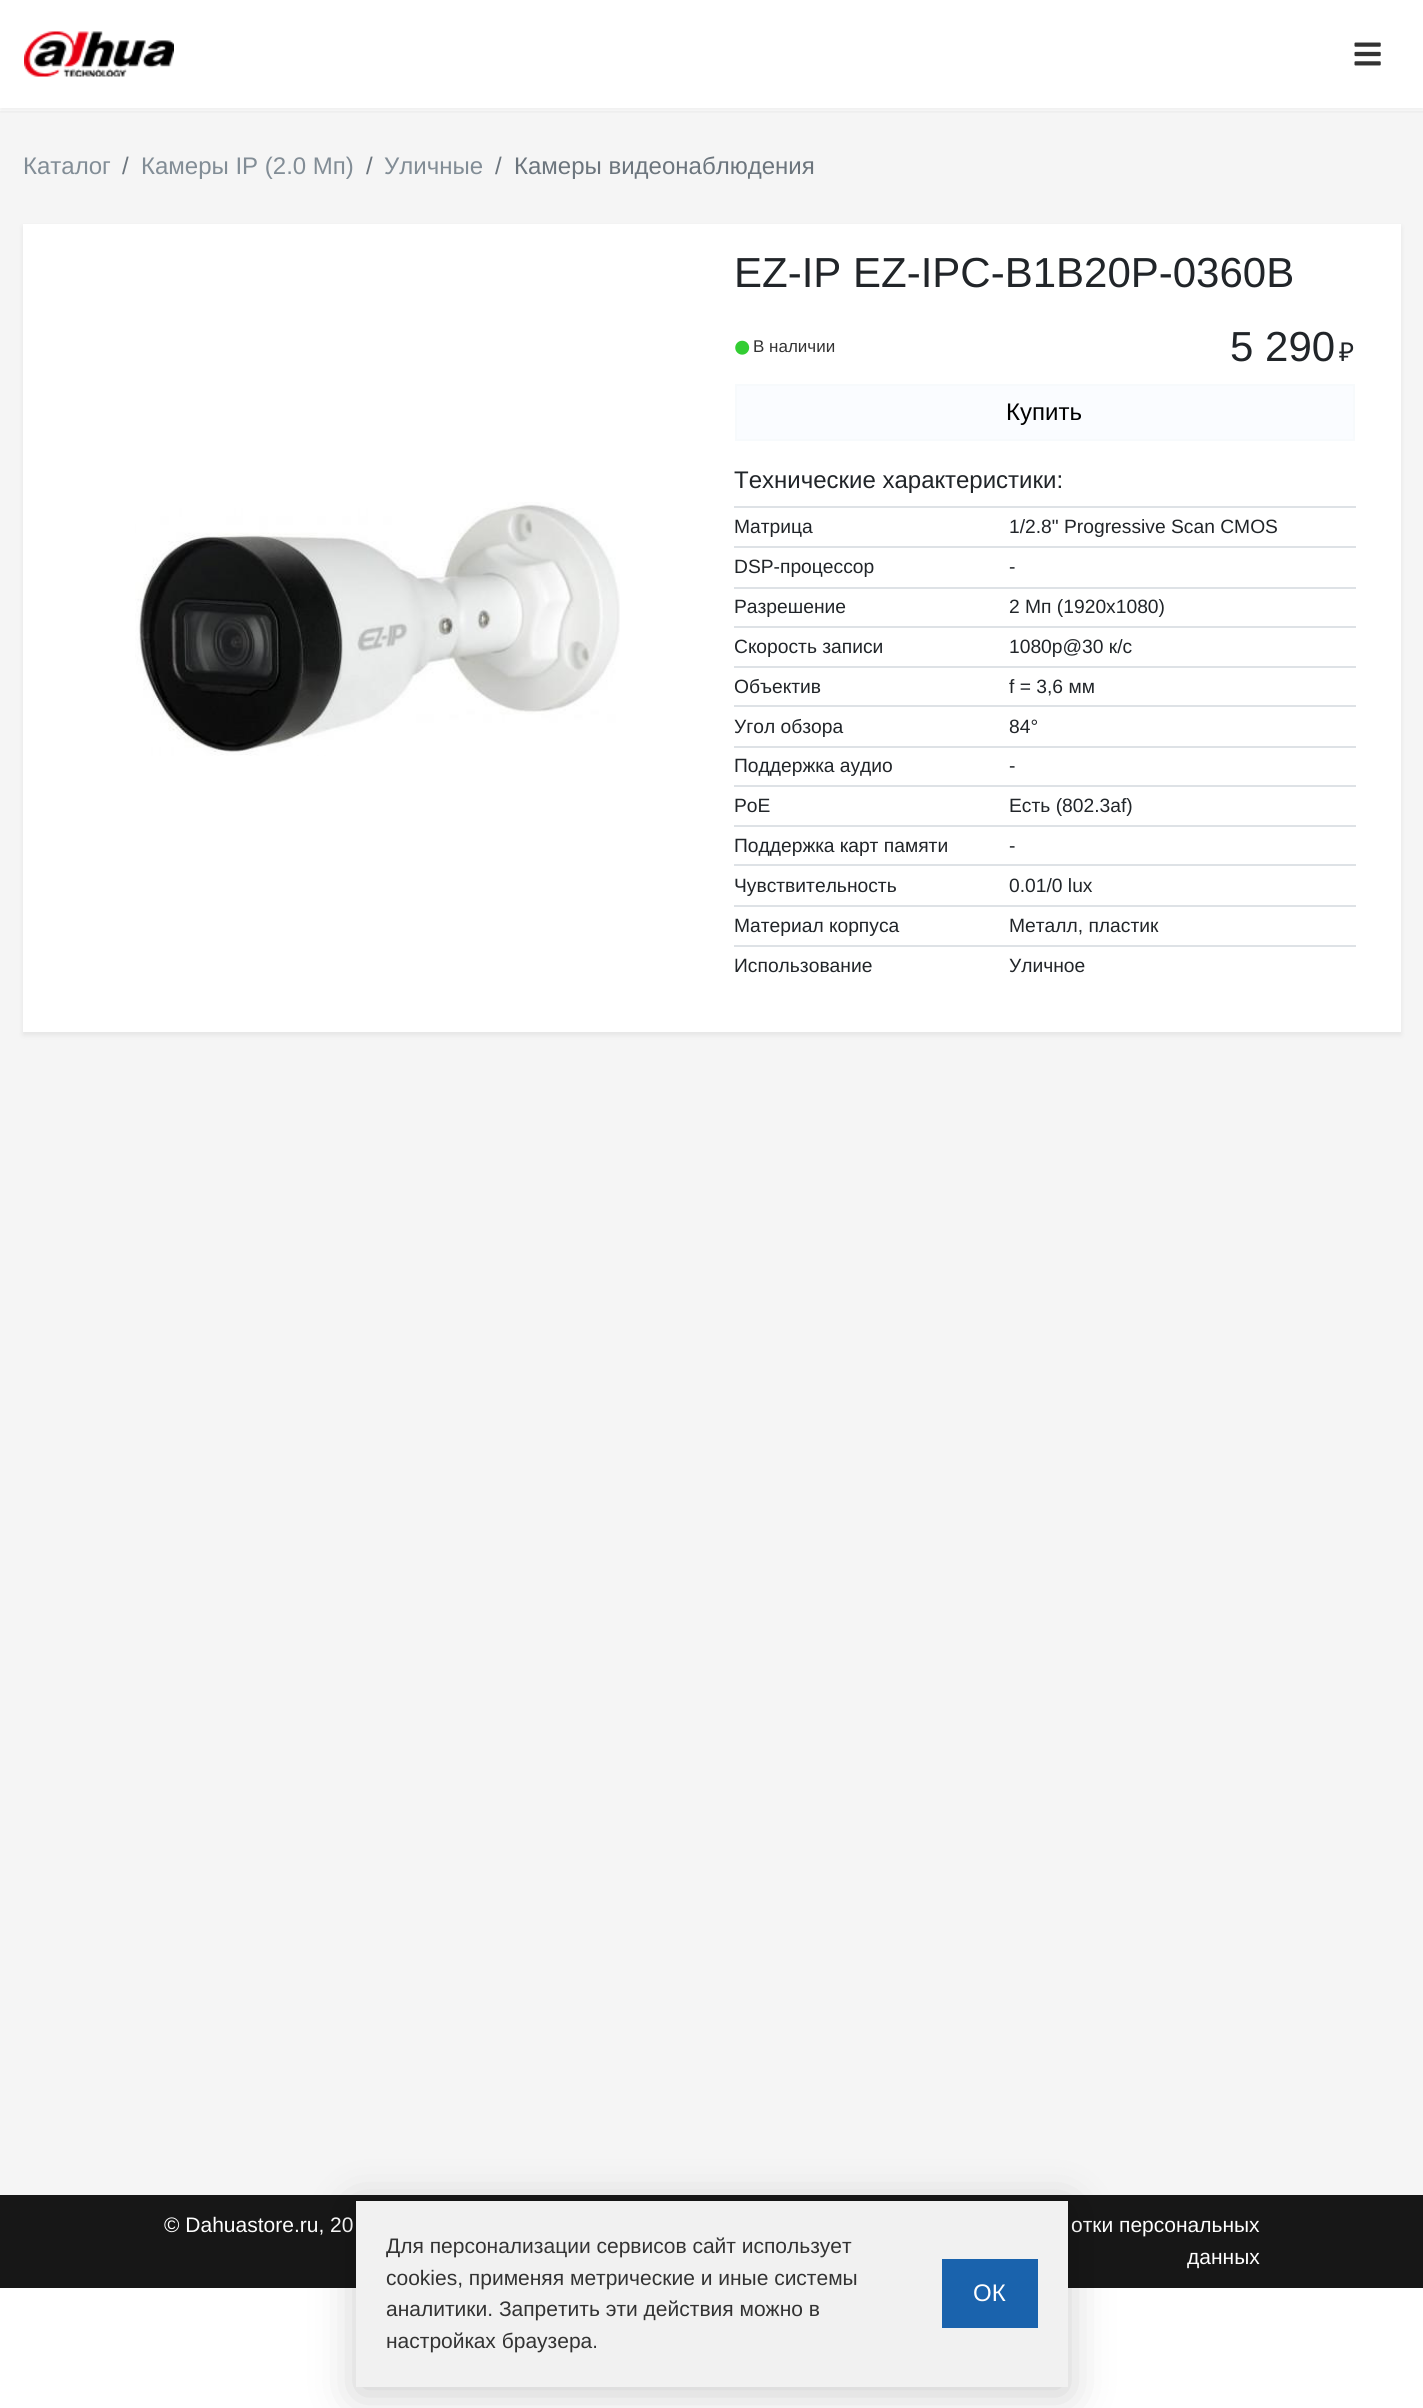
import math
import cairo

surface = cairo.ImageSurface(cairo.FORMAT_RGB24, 1423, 2408)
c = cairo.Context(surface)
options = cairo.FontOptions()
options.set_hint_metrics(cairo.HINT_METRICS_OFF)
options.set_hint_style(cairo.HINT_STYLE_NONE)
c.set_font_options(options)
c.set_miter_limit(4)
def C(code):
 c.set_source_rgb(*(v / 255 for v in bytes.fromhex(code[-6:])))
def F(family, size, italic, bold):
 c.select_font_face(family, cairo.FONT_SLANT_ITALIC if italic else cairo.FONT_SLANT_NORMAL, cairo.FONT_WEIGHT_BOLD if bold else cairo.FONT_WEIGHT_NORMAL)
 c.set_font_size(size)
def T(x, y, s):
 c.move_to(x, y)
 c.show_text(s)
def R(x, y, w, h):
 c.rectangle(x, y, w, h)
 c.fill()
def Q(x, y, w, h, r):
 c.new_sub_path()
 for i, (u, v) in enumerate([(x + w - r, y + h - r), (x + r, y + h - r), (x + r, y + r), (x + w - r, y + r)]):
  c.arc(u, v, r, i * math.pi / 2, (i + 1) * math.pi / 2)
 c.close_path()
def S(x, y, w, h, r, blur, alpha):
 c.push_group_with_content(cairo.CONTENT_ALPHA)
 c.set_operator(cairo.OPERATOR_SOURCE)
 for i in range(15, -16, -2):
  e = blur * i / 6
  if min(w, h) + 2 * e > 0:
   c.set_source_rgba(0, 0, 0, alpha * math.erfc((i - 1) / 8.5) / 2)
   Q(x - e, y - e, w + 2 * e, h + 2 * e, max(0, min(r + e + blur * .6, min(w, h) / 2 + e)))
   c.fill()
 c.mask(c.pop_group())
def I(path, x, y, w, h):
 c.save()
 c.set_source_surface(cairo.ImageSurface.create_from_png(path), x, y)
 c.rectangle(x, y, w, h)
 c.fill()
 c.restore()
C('ffffff')
c.paint()
C('f5f5f5')
R(0,111,1423,2084)
c.save()
c.rectangle(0,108,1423,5)
c.clip()
C('000000')
S(0,3,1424,108,0,3,.07)
c.restore()
I('1.png',24,31,150,46)
I('2.png',1354,42,27,24)
F('Liberation Sans',24,0,0)
C('828d96')
T(23,174,'Каталог')
C('6c757d')
T(122,174,'/')
C('828d96')
T(141,174,'Камеры IP (2.0 Мп)')
C('6c757d')
T(366,174,'/')
C('828d96')
T(384,174,'Уличные')
C('6c757d')
T(495,174,'/')
T(514,174,'Камеры видеонаблюдения')
C('000000')
S(23,227,1378,808,0,3,.07)
C('ffffff')
R(23,224,1378,808)
I('3.png',135,502,485,254)
F('Liberation Sans',42,0,0)
C('212529')
T(734,287,'EZ-IP EZ-IPC-B1B20P-0360B')
I('4.png',735,340,15,15)
F('Liberation Sans',17,0,0)
C('333333')
T(753,352,'В наличии')
F('Liberation Sans',42,0,0)
C('212529')
T(1230,361,'5 290')
F('Noto Sans',26,0,0)
T(1339,361,'₽')
C('fafcff')
c.rectangle(736,385,618,55)
c.fill_preserve()
C('f7fafc')
c.stroke()
F('Liberation Sans',24,0,0)
C('000000')
T(1006,420,'Купить')
C('212529')
T(734,488,'Технические характеристики:')
F('Liberation Sans',19.25,0,0)
T(734,533,'Матрица')
C('dee2e6')
R(734,506,622,2)
C('212529')
T(1009,533,'1/2.8" Progressive Scan CMOS')
T(734,573,'DSP-процессор')
C('dee2e6')
R(734,546,622,2)
C('212529')
T(1009,573,'-')
T(734,613,'Разрешение')
C('dee2e6')
R(734,587,622,2)
C('212529')
T(1009,613,'2 Мп (1920x1080)')
T(734,653,'Скорость записи')
C('dee2e6')
R(734,626,622,2)
C('212529')
T(1009,653,'1080p@30 к/с')
T(734,693,'Объектив')
C('dee2e6')
R(734,666,622,2)
C('212529')
T(1009,693,'f = 3,6 мм')
T(734,733,'Угол обзора')
C('dee2e6')
R(734,705,622,2)
C('212529')
T(1009,733,'84°')
T(734,772,'Поддержка аудио')
C('dee2e6')
R(734,746,622,2)
C('212529')
T(1009,772,'-')
T(734,812,'PoE')
C('dee2e6')
R(734,785,622,2)
C('212529')
T(1009,812,'Есть (802.3af)')
T(734,852,'Поддержка карт памяти')
C('dee2e6')
R(734,825,622,2)
C('212529')
T(1009,852,'-')
T(734,892,'Чувствительность')
C('dee2e6')
R(734,864,622,2)
C('212529')
T(1009,892,'0.01/0 lux')
T(734,932,'Материал корпуса')
C('dee2e6')
R(734,905,622,2)
C('212529')
T(1009,932,'Металл, пластик')
T(734,972,'Использование')
C('dee2e6')
R(734,945,622,2)
C('212529')
T(1009,972,'Уличное')
C('171717')
R(0,2195,1423,93)
F('Liberation Sans',21,0,0)
C('ffffff')
T(164,2232,'© Dahuastore.ru, 20')
T(1071,2232,'отки персональных')
T(1187,2264,'данных')
C('000000')
S(356,2208,712,186,0,22.5,.2)
C('f1f1f1')
R(356,2201,712,186)
C('333333')
T(386,2253,'Для персонализации сервисов сайт использует')
T(386,2285,'cookies, применяя метрические и иные системы')
T(386,2316,'аналитики. Запретить эти действия можно в')
T(386,2348,'настройках браузера.')
C('1a63ad')
R(942,2259,96,69)
F('Liberation Sans',24,0,0)
C('ffffff')
T(973,2301,'ОК')
surface.write_to_png('o.png')
